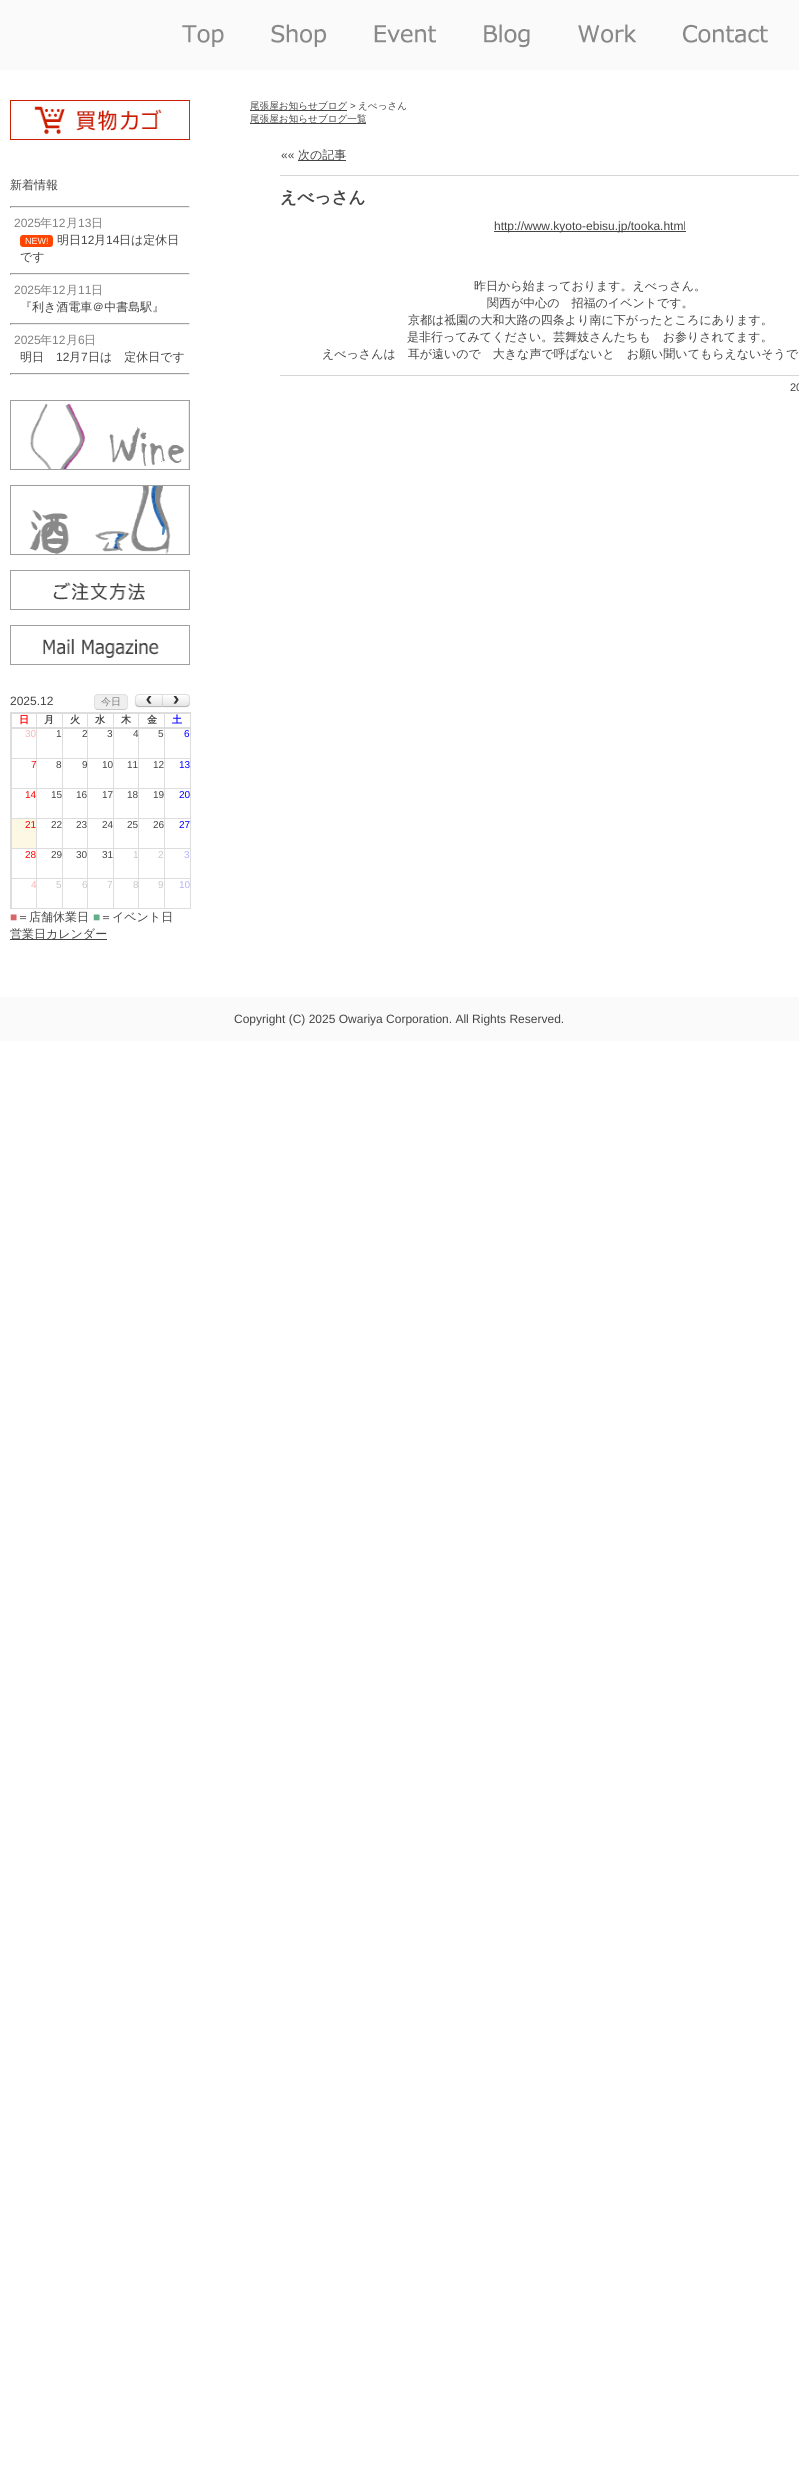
import math
import cairo

surface = cairo.ImageSurface(cairo.FORMAT_RGB24, 799, 2468)
c = cairo.Context(surface)
options = cairo.FontOptions()
options.set_hint_metrics(cairo.HINT_METRICS_OFF)
options.set_hint_style(cairo.HINT_STYLE_NONE)
c.set_font_options(options)
c.set_miter_limit(4)
def C(code):
 c.set_source_rgb(*(v / 255 for v in bytes.fromhex(code[-6:])))
def F(family, size, italic, bold):
 c.select_font_face(family, cairo.FONT_SLANT_ITALIC if italic else cairo.FONT_SLANT_NORMAL, cairo.FONT_WEIGHT_BOLD if bold else cairo.FONT_WEIGHT_NORMAL)
 c.set_font_size(size)
def T(x, y, s):
 c.move_to(x, y)
 c.show_text(s)
def R(x, y, w, h):
 c.rectangle(x, y, w, h)
 c.fill()
def Q(x, y, w, h, r):
 c.new_sub_path()
 for i, (u, v) in enumerate([(x + w - r, y + h - r), (x + r, y + h - r), (x + r, y + r), (x + w - r, y + r)]):
  c.arc(u, v, r, i * math.pi / 2, (i + 1) * math.pi / 2)
 c.close_path()
def S(x, y, w, h, r, blur, alpha):
 c.push_group_with_content(cairo.CONTENT_ALPHA)
 c.set_operator(cairo.OPERATOR_SOURCE)
 for i in range(15, -16, -2):
  e = blur * i / 6
  if min(w, h) + 2 * e > 0:
   c.set_source_rgba(0, 0, 0, alpha * math.erfc((i - 1) / 8.5) / 2)
   Q(x - e, y - e, w + 2 * e, h + 2 * e, max(0, min(r + e + blur * .6, min(w, h) / 2 + e)))
   c.fill()
 c.mask(c.pop_group())
def I(path, x, y, w, h):
 c.save()
 c.set_source_surface(cairo.ImageSurface.create_from_png(path), x, y)
 c.rectangle(x, y, w, h)
 c.fill()
 c.restore()
C('ffffff')
c.paint()
C('fafafa')
R(0,0,799,70)
I('1.png',182,24,586,24)
I('2.png',10,100,180,40)
F('WenQuanYi Zen Hei Medium',12,0,0)
C('444444')
T(10,189,'新着情報')
C('9f9f9f')
R(10,206,180,1)
C('eeeeee')
R(189,206,1,2)
R(10,207,180,1)
C('9f9f9f')
R(10,206,1,2)
F('Liberation Sans',12,0,0)
C('808080')
T(14,227,'2025')
F('WenQuanYi Zen Hei Medium',12,0,0)
T(40,227,'年')
F('Liberation Sans',12,0,0)
T(52,227,'12')
F('WenQuanYi Zen Hei Medium',12,0,0)
T(66,227,'月')
F('Liberation Sans',12,0,0)
T(78,227,'13')
F('WenQuanYi Zen Hei Medium',12,0,0)
T(91,227,'日')
C('ff4500')
Q(20,235,33,12,3)
c.fill()
F('Liberation Sans',9,0,0)
C('ffffff')
T(25,244,'NEW!')
F('WenQuanYi Zen Hei Medium',12,0,0)
C('444444')
T(57,244,'明日')
F('Liberation Sans',12,0,0)
T(81,244,'12')
F('WenQuanYi Zen Hei Medium',12,0,0)
T(94,244,'月')
F('Liberation Sans',12,0,0)
T(106,244,'14')
F('WenQuanYi Zen Hei Medium',12,0,0)
T(119,244,'日は定休日')
T(20,261,'です')
C('9f9f9f')
R(10,273,180,1)
C('eeeeee')
R(189,273,1,2)
R(10,274,180,1)
C('9f9f9f')
R(10,273,1,2)
F('Liberation Sans',12,0,0)
C('808080')
T(14,294,'2025')
F('WenQuanYi Zen Hei Medium',12,0,0)
T(40,294,'年')
F('Liberation Sans',12,0,0)
T(52,294,'12')
F('WenQuanYi Zen Hei Medium',12,0,0)
T(66,294,'月')
F('Liberation Sans',12,0,0)
T(78,294,'11')
F('WenQuanYi Zen Hei Medium',12,0,0)
T(91,294,'日')
C('444444')
T(20,311,'『利き酒電車＠中書島駅』')
C('9f9f9f')
R(10,323,180,1)
C('eeeeee')
R(189,323,1,2)
R(10,324,180,1)
C('9f9f9f')
R(10,323,1,2)
F('Liberation Sans',12,0,0)
C('808080')
T(14,344,'2025')
F('WenQuanYi Zen Hei Medium',12,0,0)
T(40,344,'年')
F('Liberation Sans',12,0,0)
T(52,344,'12')
F('WenQuanYi Zen Hei Medium',12,0,0)
T(66,344,'月')
F('Liberation Sans',12,0,0)
T(78,344,'6')
F('WenQuanYi Zen Hei Medium',12,0,0)
T(84,344,'日')
C('444444')
T(20,361,'明日')
F('Liberation Sans',12,0,0)
T(56,361,'12')
F('WenQuanYi Zen Hei Medium',12,0,0)
T(69,361,'月')
F('Liberation Sans',12,0,0)
T(81,361,'7')
F('WenQuanYi Zen Hei Medium',12,0,0)
T(88,361,'日は　定休日です')
C('9f9f9f')
R(10,373,180,1)
C('eeeeee')
R(189,373,1,2)
R(10,374,180,1)
C('9f9f9f')
R(10,373,1,2)
I('3.png',10,400,180,70)
I('4.png',10,485,180,70)
I('5.png',10,570,180,40)
I('6.png',10,625,180,40)
F('Liberation Sans',12,0,0)
C('444444')
T(10,705,'2025.12')
C('efefef')
Q(94,694,34,16,4)
c.fill()
c.new_path()
c.move_to(126.5,708.5)
c.curve_to(126,709,125,709.5,124,709.5)
c.line_to(98,709.5)
c.curve_to(97,709.5,96,709,95.5,708.5)
c.set_source_rgba(0.349,0.349,0.349,0.25)
c.set_line_width(1)
c.stroke()
c.new_path()
c.move_to(95.5,708.5)
c.curve_to(94,707,94.5,704,94.5,702)
c.curve_to(94.5,694.5,94.5,694.5,102.5,694.5)
c.line_to(119.5,694.5)
c.curve_to(126,694.5,127.5,694,127.5,700.5)
c.curve_to(127.5,703,128.5,706.5,126.5,708.5)
c.set_source_rgba(0.349,0.349,0.349,0.1)
c.stroke()
F('WenQuanYi Zen Hei Medium',10,0,0)
C('7a7a7a')
T(101,705,'今日')
C('000000')
S(135,695,28,13,4,1,.05)
C('f5f5f5')
c.new_path()
c.move_to(139,694)
c.line_to(163,694)
c.line_to(163,707)
c.line_to(139,707)
c.curve_to(137,707,135,705,135,703)
c.line_to(135,698)
c.curve_to(135,696,137,694,139,694)
c.close_path()
c.fill()
c.save()
c.new_path()
c.move_to(139,694)
c.line_to(163,694)
c.line_to(163,707)
c.line_to(139,707)
c.curve_to(137,707,135,705,135,703)
c.line_to(135,698)
c.curve_to(135,696,137,694,139,694)
c.close_path()
c.clip()
gradient = cairo.LinearGradient(149,695,149,706)
gradient.add_color_stop_rgba(0,1,1,1,1)
gradient.add_color_stop_rgba(1,0.902,0.902,0.902,1)
c.set_source(gradient)
R(135,695,27,11)
c.restore()
C('fefefe')
c.new_path()
c.move_to(139,696)
c.line_to(162,696)
c.line_to(162,695)
c.line_to(143,695)
c.curve_to(138,695,136,694.5,136,699.5)
c.line_to(136,704)
c.curve_to(135.5,701.5,135.5,696,139,696)
c.close_path()
c.fill()
c.set_source_rgba(0,0,0,0.1)
c.new_path()
c.move_to(139,694)
c.curve_to(138,694,137,694.5,136,695)
c.line_to(137,696)
c.curve_to(137.5,695.5,138,695,139,695)
c.line_to(162,695)
c.line_to(163,694)
c.close_path()
c.fill()
c.set_source_rgba(0,0,0,0.25)
c.new_path()
c.move_to(163,707)
c.line_to(162,706)
c.line_to(139,706)
c.curve_to(138,706,137.5,705.5,137,705)
c.line_to(136,706)
c.curve_to(137,706.5,138,707,139,707)
c.close_path()
c.fill()
c.set_source_rgba(0,0,0,0.1)
c.new_path()
c.move_to(135,698)
c.curve_to(135,700.5,134.5,704,136,706)
c.line_to(137,705)
c.curve_to(135.5,703.5,135.5,697.5,137,696)
c.line_to(136,695)
c.curve_to(135.5,696,135,697,135,698)
c.close_path()
c.fill()
c.save()
c.rectangle(144,696,10,10)
c.clip()
F('Liberation Mono',20,0,1)
C('333333')
T(143,705,'‹')
c.restore()
C('000000')
S(162,695,28,13,4,1,.05)
C('f5f5f5')
c.new_path()
c.move_to(162,694)
c.line_to(186,694)
c.curve_to(188,694,190,696,190,698)
c.line_to(190,703)
c.curve_to(190,705,188,707,186,707)
c.line_to(162,707)
c.close_path()
c.fill()
c.save()
c.new_path()
c.move_to(162,694)
c.line_to(186,694)
c.curve_to(188,694,190,696,190,698)
c.line_to(190,703)
c.curve_to(190,705,188,707,186,707)
c.line_to(162,707)
c.close_path()
c.clip()
gradient = cairo.LinearGradient(176,695,176,706)
gradient.add_color_stop_rgba(0,1,1,1,1)
gradient.add_color_stop_rgba(1,0.902,0.902,0.902,1)
c.set_source(gradient)
R(162,695,28,11)
c.restore()
c.set_source_rgba(0,0,0,0.1)
c.new_path()
c.move_to(162,694)
c.line_to(163,695)
c.line_to(186,695)
c.curve_to(187,695,187.5,695.5,188,696)
c.line_to(189,695)
c.curve_to(188,694.5,187,694,186,694)
c.close_path()
c.fill()
c.new_path()
c.move_to(190,703)
c.curve_to(190,700.5,190.5,697,189,695)
c.line_to(188,696)
c.curve_to(189.5,697.5,189.5,703.5,188,705)
c.line_to(189,706)
c.curve_to(189.5,705,190,704,190,703)
c.close_path()
c.fill()
c.set_source_rgba(0,0,0,0.25)
c.new_path()
c.move_to(186,707)
c.curve_to(187,707,188,706.5,189,706)
c.line_to(188,705)
c.curve_to(187.5,705.5,187,706,186,706)
c.line_to(163,706)
c.line_to(162,707)
c.close_path()
c.fill()
c.set_source_rgba(0,0,0,0.1)
c.new_path()
c.move_to(162,694)
c.line_to(162,707)
c.line_to(163,706)
c.line_to(163,695)
c.close_path()
c.fill()
c.save()
c.rectangle(171,696,10,10)
c.clip()
F('Liberation Mono',20,0,1)
C('333333')
T(170,705,'›')
c.restore()
C('dddddd')
R(10,712,181,1)
R(10,727,181,1)
R(190,727,1,182)
R(190,712,1,16)
R(10,908,181,1)
R(10,727,1,182)
R(10,712,1,16)
R(164,713,27,1)
R(164,713,1,15)
R(138,713,27,1)
R(138,713,1,15)
R(113,713,26,1)
R(113,713,1,15)
R(87,713,27,1)
R(87,713,1,15)
R(62,713,26,1)
R(62,713,1,15)
R(36,713,27,1)
R(36,713,1,15)
R(11,713,26,1)
R(11,713,1,15)
F('WenQuanYi Zen Hei',10,0,1)
C('ff0000')
T(19,723,'日')
C('444444')
T(44,723,'月')
T(70,723,'火')
T(95,723,'水')
T(121,723,'木')
T(147,723,'金')
C('0000ff')
T(172,723,'土')
C('dddddd')
R(164,728,27,1)
R(164,758,27,1)
R(164,728,1,31)
R(138,728,27,1)
R(138,758,27,1)
R(138,728,1,31)
R(113,728,26,1)
R(113,758,26,1)
R(113,728,1,31)
R(87,728,27,1)
R(87,758,27,1)
R(87,728,1,31)
R(62,728,26,1)
R(62,758,26,1)
R(62,728,1,31)
R(36,728,27,1)
R(36,758,27,1)
R(36,728,1,31)
R(11,728,26,1)
R(11,758,26,1)
R(11,728,1,31)
F('Liberation Sans',10,0,0)
C('ffb3b3')
T(25,737,'30')
C('444444')
T(56,737,'1')
T(82,737,'2')
T(107,737,'3')
T(133,737,'4')
T(158,737,'5')
C('0000ff')
T(184,737,'6')
C('dddddd')
R(164,788,27,1)
R(164,758,1,31)
R(138,788,27,1)
R(138,758,1,31)
R(113,788,26,1)
R(113,758,1,31)
R(87,788,27,1)
R(87,758,1,31)
R(62,788,26,1)
R(62,758,1,31)
R(36,788,27,1)
R(36,758,1,31)
R(11,788,26,1)
R(11,758,1,31)
C('ff0000')
T(31,768,'7')
C('444444')
T(56,768,'8')
T(82,768,'9')
T(102,768,'10')
T(127,768,'11')
T(153,768,'12')
C('0000ff')
T(179,768,'13')
C('dddddd')
R(164,818,27,1)
R(164,788,1,31)
R(138,818,27,1)
R(138,788,1,31)
R(113,818,26,1)
R(113,788,1,31)
R(87,818,27,1)
R(87,788,1,31)
R(62,818,26,1)
R(62,788,1,31)
R(36,818,27,1)
R(36,788,1,31)
R(11,818,26,1)
R(11,788,1,31)
C('ff0000')
T(25,798,'14')
C('444444')
T(51,798,'15')
T(76,798,'16')
T(102,798,'17')
T(127,798,'18')
T(153,798,'19')
C('0000ff')
T(179,798,'20')
C('fcf8e3')
R(12,819,24,29)
C('dddddd')
R(164,848,27,1)
R(164,818,1,31)
R(138,848,27,1)
R(138,818,1,31)
R(113,848,26,1)
R(113,818,1,31)
R(87,848,27,1)
R(87,818,1,31)
R(62,848,26,1)
R(62,818,1,31)
R(36,848,27,1)
R(36,818,1,31)
R(11,848,26,1)
R(11,818,1,31)
C('ff0000')
T(25,828,'21')
C('444444')
T(51,828,'22')
T(76,828,'23')
T(102,828,'24')
T(127,828,'25')
T(153,828,'26')
C('0000ff')
T(179,828,'27')
C('dddddd')
R(164,878,27,1)
R(164,848,1,31)
R(138,878,27,1)
R(138,848,1,31)
R(113,878,26,1)
R(113,848,1,31)
R(87,878,27,1)
R(87,848,1,31)
R(62,878,26,1)
R(62,848,1,31)
R(36,878,27,1)
R(36,848,1,31)
R(11,878,26,1)
R(11,848,1,61)
C('ff0000')
T(25,858,'28')
C('444444')
T(51,858,'29')
T(76,858,'30')
T(102,858,'31')
C('c7c7c7')
T(133,858,'1')
T(158,858,'2')
C('b3b3ff')
T(184,858,'3')
C('dddddd')
R(36,878,1,31)
R(62,878,1,31)
R(87,878,1,31)
R(113,878,1,31)
R(138,878,1,31)
R(164,878,1,31)
C('ffb3b3')
T(31,888,'4')
C('c7c7c7')
T(56,888,'5')
T(82,888,'6')
T(107,888,'7')
T(133,888,'8')
T(158,888,'9')
C('b3b3ff')
T(179,888,'10')
F('Liberation Sans',12,0,0)
C('d96666')
T(10,921,'■')
F('WenQuanYi Zen Hei Medium',12,0,0)
C('444444')
T(17,921,'＝店舗休業日')
F('Liberation Sans',12,0,0)
C('65ad89')
T(93,921,'■')
F('WenQuanYi Zen Hei Medium',12,0,0)
C('444444')
T(100,921,'＝イベント日')
R(10,939,97,1)
T(10,938,'営業日カレンダー')
R(250,110,97,1)
F('WenQuanYi Zen Hei Medium',9.6,0,0)
T(250,109,'尾張屋お知らせブログ')
F('Liberation Sans',9.6,0,0)
T(350,109,'>')
F('WenQuanYi Zen Hei Medium',9.6,0,0)
T(358,109,'えべっさん')
R(250,123,116,1)
T(250,122,'尾張屋お知らせブログ一覧')
F('Liberation Sans',12,0,0)
T(281,159,'««')
R(298,160,48,1)
F('WenQuanYi Zen Hei Medium',12,0,0)
T(298,159,'次の記事')
C('d6d6d6')
R(280,175,519,1)
F('WenQuanYi Zen Hei',16.75,0,1)
C('444444')
T(280,203,'えべっさん')
R(494,231,192,1)
F('Liberation Sans',12,0,0)
T(494,230,'http://www.kyoto-ebisu.jp/tooka.html')
F('WenQuanYi Zen Hei Medium',12,0,0)
T(474,290,'昨日から始まっております。えべっさん。')
T(487,307,'関西が中心の　招福のイベントです。')
T(408,324,'京都は祗園の大和大路の四条より南に下がったところにあります。')
T(407,341,'是非行ってみてください。芸舞妓さんたちも　お参りされてます。')
T(322,358,'えべっさんは　耳が遠いので　大きな声で呼ばないと　お願い聞いてもらえないそうで')
C('d6d6d6')
R(280,375,519,1)
F('Liberation Sans',11,0,0)
C('444444')
T(790,391,'20')
C('fafafa')
R(0,997,799,44)
F('Liberation Sans',12,0,0)
C('444444')
T(234,1023,'Copyright (C) 2025 Owariya Corporation. All Rights Reserved.')
surface.write_to_png('o.png')
